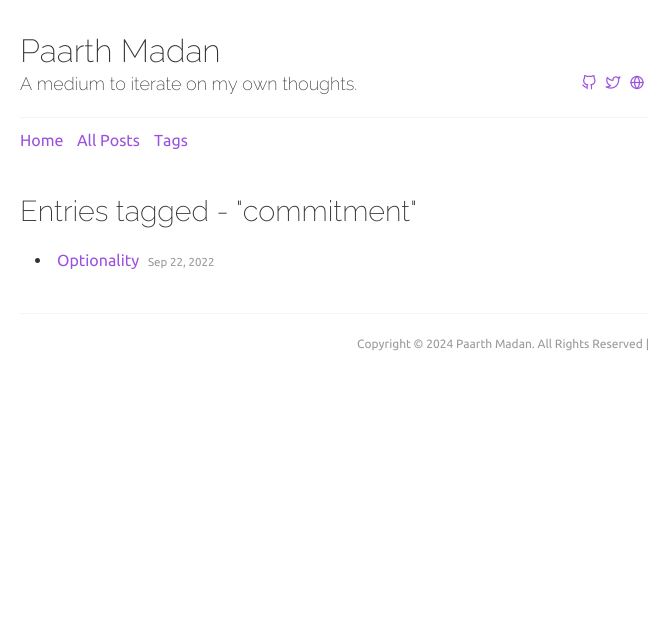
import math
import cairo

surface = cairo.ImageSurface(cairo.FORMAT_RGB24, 669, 625)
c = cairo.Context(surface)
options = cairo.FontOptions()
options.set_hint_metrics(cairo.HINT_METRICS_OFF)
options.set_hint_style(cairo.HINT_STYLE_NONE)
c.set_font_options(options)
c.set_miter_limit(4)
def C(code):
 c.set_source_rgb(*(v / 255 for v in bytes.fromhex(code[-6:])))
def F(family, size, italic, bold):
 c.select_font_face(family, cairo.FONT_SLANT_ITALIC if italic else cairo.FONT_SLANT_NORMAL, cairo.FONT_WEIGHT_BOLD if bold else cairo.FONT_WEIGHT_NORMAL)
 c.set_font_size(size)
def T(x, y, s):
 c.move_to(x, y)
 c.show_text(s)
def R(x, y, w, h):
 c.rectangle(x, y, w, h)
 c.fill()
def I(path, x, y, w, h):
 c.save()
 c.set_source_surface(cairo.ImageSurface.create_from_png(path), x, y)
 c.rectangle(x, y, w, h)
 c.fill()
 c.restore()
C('ffffff')
c.paint()
F('Raleway ExtraLight',32,0,0)
C('333333')
T(20,62,'Paarth Madan')
F('Raleway ExtraLight',18,0,0)
T(20,90,'A medium to iterate on my own thoughts.')
I('1.png',582,75,14,15)
I('2.png',605,76,16,13)
I('3.png',630,75,14,15)
C('f4f4f4')
R(20,117,629,1)
F('Ubuntu',16,0,0)
C('9b51e0')
T(20,146,'Home')
T(77,146,'All Posts')
T(154,146,'Tags')
F('Raleway ExtraLight',28.75,0,0)
C('333333')
T(20,221,'Entries tagged - "commitment"')
c.new_path()
c.arc(37.5,260.5,2.5,0,2 * math.pi)
c.fill()
F('Ubuntu',16,0,0)
C('9b51e0')
T(57,266,'Optionality')
F('Ubuntu',11.5,0,0)
C('999999')
T(148,266,'Sep 22, 2022')
C('f4f4f4')
R(20,313,629,1)
F('Ubuntu',12,0,0)
C('999999')
T(357,348,'Copyright © 2024 Paarth Madan. All Rights Reserved |')
surface.write_to_png('o.png')
